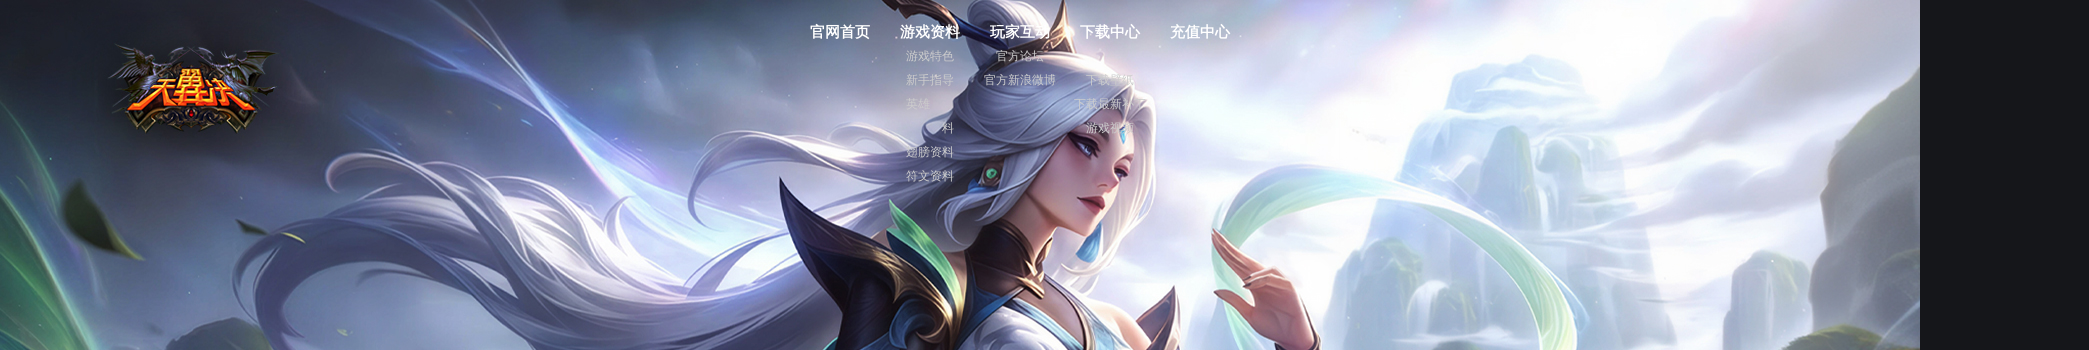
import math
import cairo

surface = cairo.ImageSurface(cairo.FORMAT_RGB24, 2089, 350)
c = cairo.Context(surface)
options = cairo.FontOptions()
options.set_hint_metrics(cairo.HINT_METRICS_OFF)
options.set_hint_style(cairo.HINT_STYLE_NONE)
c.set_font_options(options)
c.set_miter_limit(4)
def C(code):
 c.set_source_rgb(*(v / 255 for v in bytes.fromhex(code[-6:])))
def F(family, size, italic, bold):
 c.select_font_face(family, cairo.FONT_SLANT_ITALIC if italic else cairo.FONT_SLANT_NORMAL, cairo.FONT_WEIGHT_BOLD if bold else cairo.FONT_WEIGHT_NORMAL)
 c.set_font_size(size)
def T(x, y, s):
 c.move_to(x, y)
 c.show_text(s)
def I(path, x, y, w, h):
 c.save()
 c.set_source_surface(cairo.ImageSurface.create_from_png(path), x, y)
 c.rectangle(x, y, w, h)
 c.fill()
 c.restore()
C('15161a')
c.paint()
I('1.png',0,0,1920,350)
F('WenQuanYi Zen Hei',15,0,1)
C('ffffff')
T(810,37,'官网首页')
T(900,37,'游戏资料')
F('WenQuanYi Zen Hei Medium',12,0,0)
C('cccccc')
T(906,60,'游戏特色')
T(906,84,'新手指导')
T(906,108,'英雄')
T(942,132,'料')
T(906,156,'翅膀资料')
T(906,180,'符文资料')
F('WenQuanYi Zen Hei',15,0,1)
C('ffffff')
T(990,37,'玩家互动')
F('WenQuanYi Zen Hei Medium',12,0,0)
C('cccccc')
T(996,60,'官方论坛')
T(984,84,'官方新浪微博')
F('WenQuanYi Zen Hei',15,0,1)
C('ffffff')
T(1080,37,'下载中心')
F('WenQuanYi Zen Hei Medium',12,0,0)
C('cccccc')
T(1086,84,'下载壁纸')
T(1074,108,'下载最新补丁')
T(1086,132,'游戏视频')
F('WenQuanYi Zen Hei',15,0,1)
C('ffffff')
T(1170,37,'充值中心')
surface.write_to_png('o.png')
